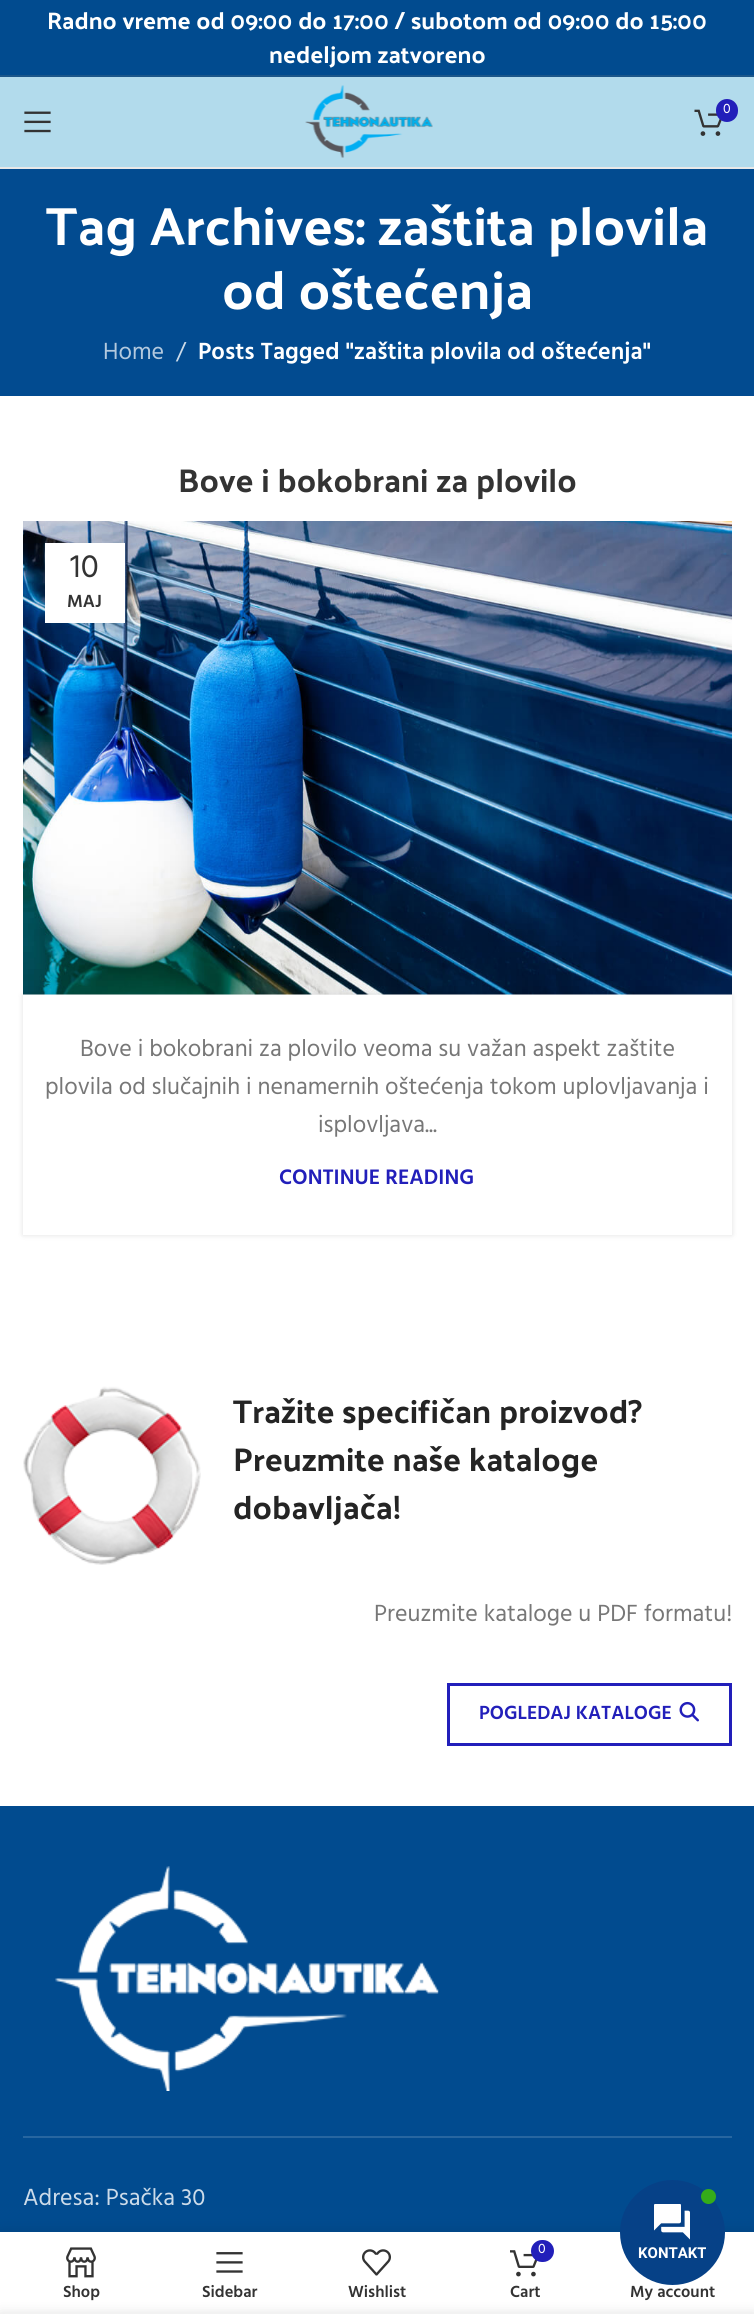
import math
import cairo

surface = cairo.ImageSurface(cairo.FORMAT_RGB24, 754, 2314)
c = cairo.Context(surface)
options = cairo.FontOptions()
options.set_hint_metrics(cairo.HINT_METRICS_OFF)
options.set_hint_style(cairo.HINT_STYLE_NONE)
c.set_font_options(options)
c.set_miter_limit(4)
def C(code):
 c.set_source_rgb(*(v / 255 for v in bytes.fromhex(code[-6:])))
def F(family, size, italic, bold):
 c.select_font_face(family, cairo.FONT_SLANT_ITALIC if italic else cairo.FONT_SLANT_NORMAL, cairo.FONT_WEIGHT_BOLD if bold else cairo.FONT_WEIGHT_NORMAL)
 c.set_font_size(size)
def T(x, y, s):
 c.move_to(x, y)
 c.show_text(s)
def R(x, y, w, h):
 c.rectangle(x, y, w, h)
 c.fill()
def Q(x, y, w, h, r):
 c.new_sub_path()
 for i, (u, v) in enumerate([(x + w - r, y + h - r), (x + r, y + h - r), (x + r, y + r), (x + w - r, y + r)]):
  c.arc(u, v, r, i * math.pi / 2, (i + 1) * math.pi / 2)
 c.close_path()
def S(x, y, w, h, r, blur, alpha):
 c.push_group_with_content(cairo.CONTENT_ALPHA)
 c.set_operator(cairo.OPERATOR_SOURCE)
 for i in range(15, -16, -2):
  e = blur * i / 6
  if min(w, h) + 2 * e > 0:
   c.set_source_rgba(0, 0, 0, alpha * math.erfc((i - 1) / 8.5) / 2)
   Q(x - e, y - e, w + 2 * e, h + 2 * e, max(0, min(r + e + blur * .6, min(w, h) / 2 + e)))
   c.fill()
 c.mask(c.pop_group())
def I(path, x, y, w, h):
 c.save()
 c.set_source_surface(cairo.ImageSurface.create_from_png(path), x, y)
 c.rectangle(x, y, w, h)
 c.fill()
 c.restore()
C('ffffff')
c.paint()
C('014b8f')
R(0,0,754,75)
C('1b568a')
R(0,75,754,2)
F('Palanquin Dark',24,0,0)
C('ffffff')
T(47,29,'Radno vreme od 09:00 do 17:00 / subotom od 09:00 do 15:00')
T(269,63,'nedeljom zatvoreno')
C('b2dbec')
R(0,77,754,90)
C('e8e8e8')
R(0,167,754,2)
I('1.png',305,85,128,73)
I('2.png',694,109,28,27)
C('221fba')
Q(716,99,22,23,11)
c.fill()
F('Hind',14,0,0)
C('ffffff')
T(723,113,'0')
I('3.png',24,111,27,22)
C('024b90')
R(0,169,754,227)
F('Palanquin Dark',54,0,0)
C('ffffff')
T(46,245,'Tag Archives: zaštita plovila')
T(222,309,'od oštećenja')
F('Hind',24,0,0)
C('b3c9de')
T(103,359,'Home')
C('ccdbe9')
T(176,359,'/')
F('Hind SemiBold',24,0,0)
C('ffffff')
T(198,359,'Posts Tagged "zaštita plovila od oštećenja"')
F('Palanquin Dark',33,0,0)
C('333333')
T(178,492,'Bove i bokobrani za plovilo')
I('4.png',23,521,709,474)
C('000000')
S(45,543,80,80,0,7,.1)
C('ffffff')
R(45,543,80,80)
F('Hind',33,0,0)
C('333333')
T(70,577,'10')
F('Hind SemiBold',18,0,0)
T(67,607,'MAJ')
C('000000')
S(23,995,709,240,0,3,.12)
C('ffffff')
R(23,995,709,240)
F('Hind',24,0,0)
C('777777')
T(80,1056,'Bove i bokobrani za plovilo veoma su važan aspekt zaštite')
T(45,1094,'plovila od slučajnih i nenamernih oštećenja tokom uplovljavanja i')
T(318,1132,'isplovljava...')
F('Hind SemiBold',21.5,0,0)
C('221fba')
T(279,1184,'CONTINUE READING')
I('5.png',23,1386,178,179)
F('Palanquin Dark',33,0,0)
C('242424')
T(233,1423,'Tražite specifičan proizvod?')
T(233,1471,'Preuzmite naše kataloge')
T(233,1519,'dobavljača!')
F('Hind',24,0,0)
C('777777')
T(374,1621,'Preuzmite kataloge u PDF formatu!')
c.rectangle(448.5,1684.5,282,60)
C('221fba')
c.set_line_width(3)
c.stroke()
F('Hind SemiBold',19.5,0,0)
T(479,1719,'POGLEDAJ KATALOGE')
I('6.png',679,1701,20,21)
C('014b8f')
R(0,1806,754,426)
C('2766a0')
R(23,2136,709,2)
I('7.png',55,1866,384,225)
F('Hind',24,0,0)
C('ccdbe9')
T(23,2205,'Adresa: Psačka 30')
C('000000')
S(0,2232,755,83,0,7,.12)
C('ffffff')
R(0,2232,754,82)
I('8.png',66,2247,30,31)
F('Hind SemiBold',16.5,0,0)
C('333333')
T(63,2297,'Shop')
I('9.png',216,2252,27,21)
T(202,2297,'Sidebar')
I('10.png',362,2249,29,27)
T(348,2297,'Wishlist')
I('11.png',510,2250,28,27)
C('221fba')
Q(531,2240,23,22,11)
c.fill()
F('Hind',14,0,0)
C('ffffff')
T(538,2253,'0')
F('Hind SemiBold',16.5,0,0)
C('333333')
T(510,2297,'Cart')
T(630,2297,'My account')
C('064187')
c.new_path()
c.arc(672.5,2232.5,52.5,0,2 * math.pi)
c.fill()
C('35ac19')
c.arc(708.5,2196.5,7.5,0,2 * math.pi)
c.fill()
I('12.png',654,2204,36,36)
F('Roboto',15,0,1)
C('ffffff')
T(638,2258,'KONTAKT')
C('000000')
S(0,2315,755,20,0,7,.14)
surface.write_to_png('o.png')
